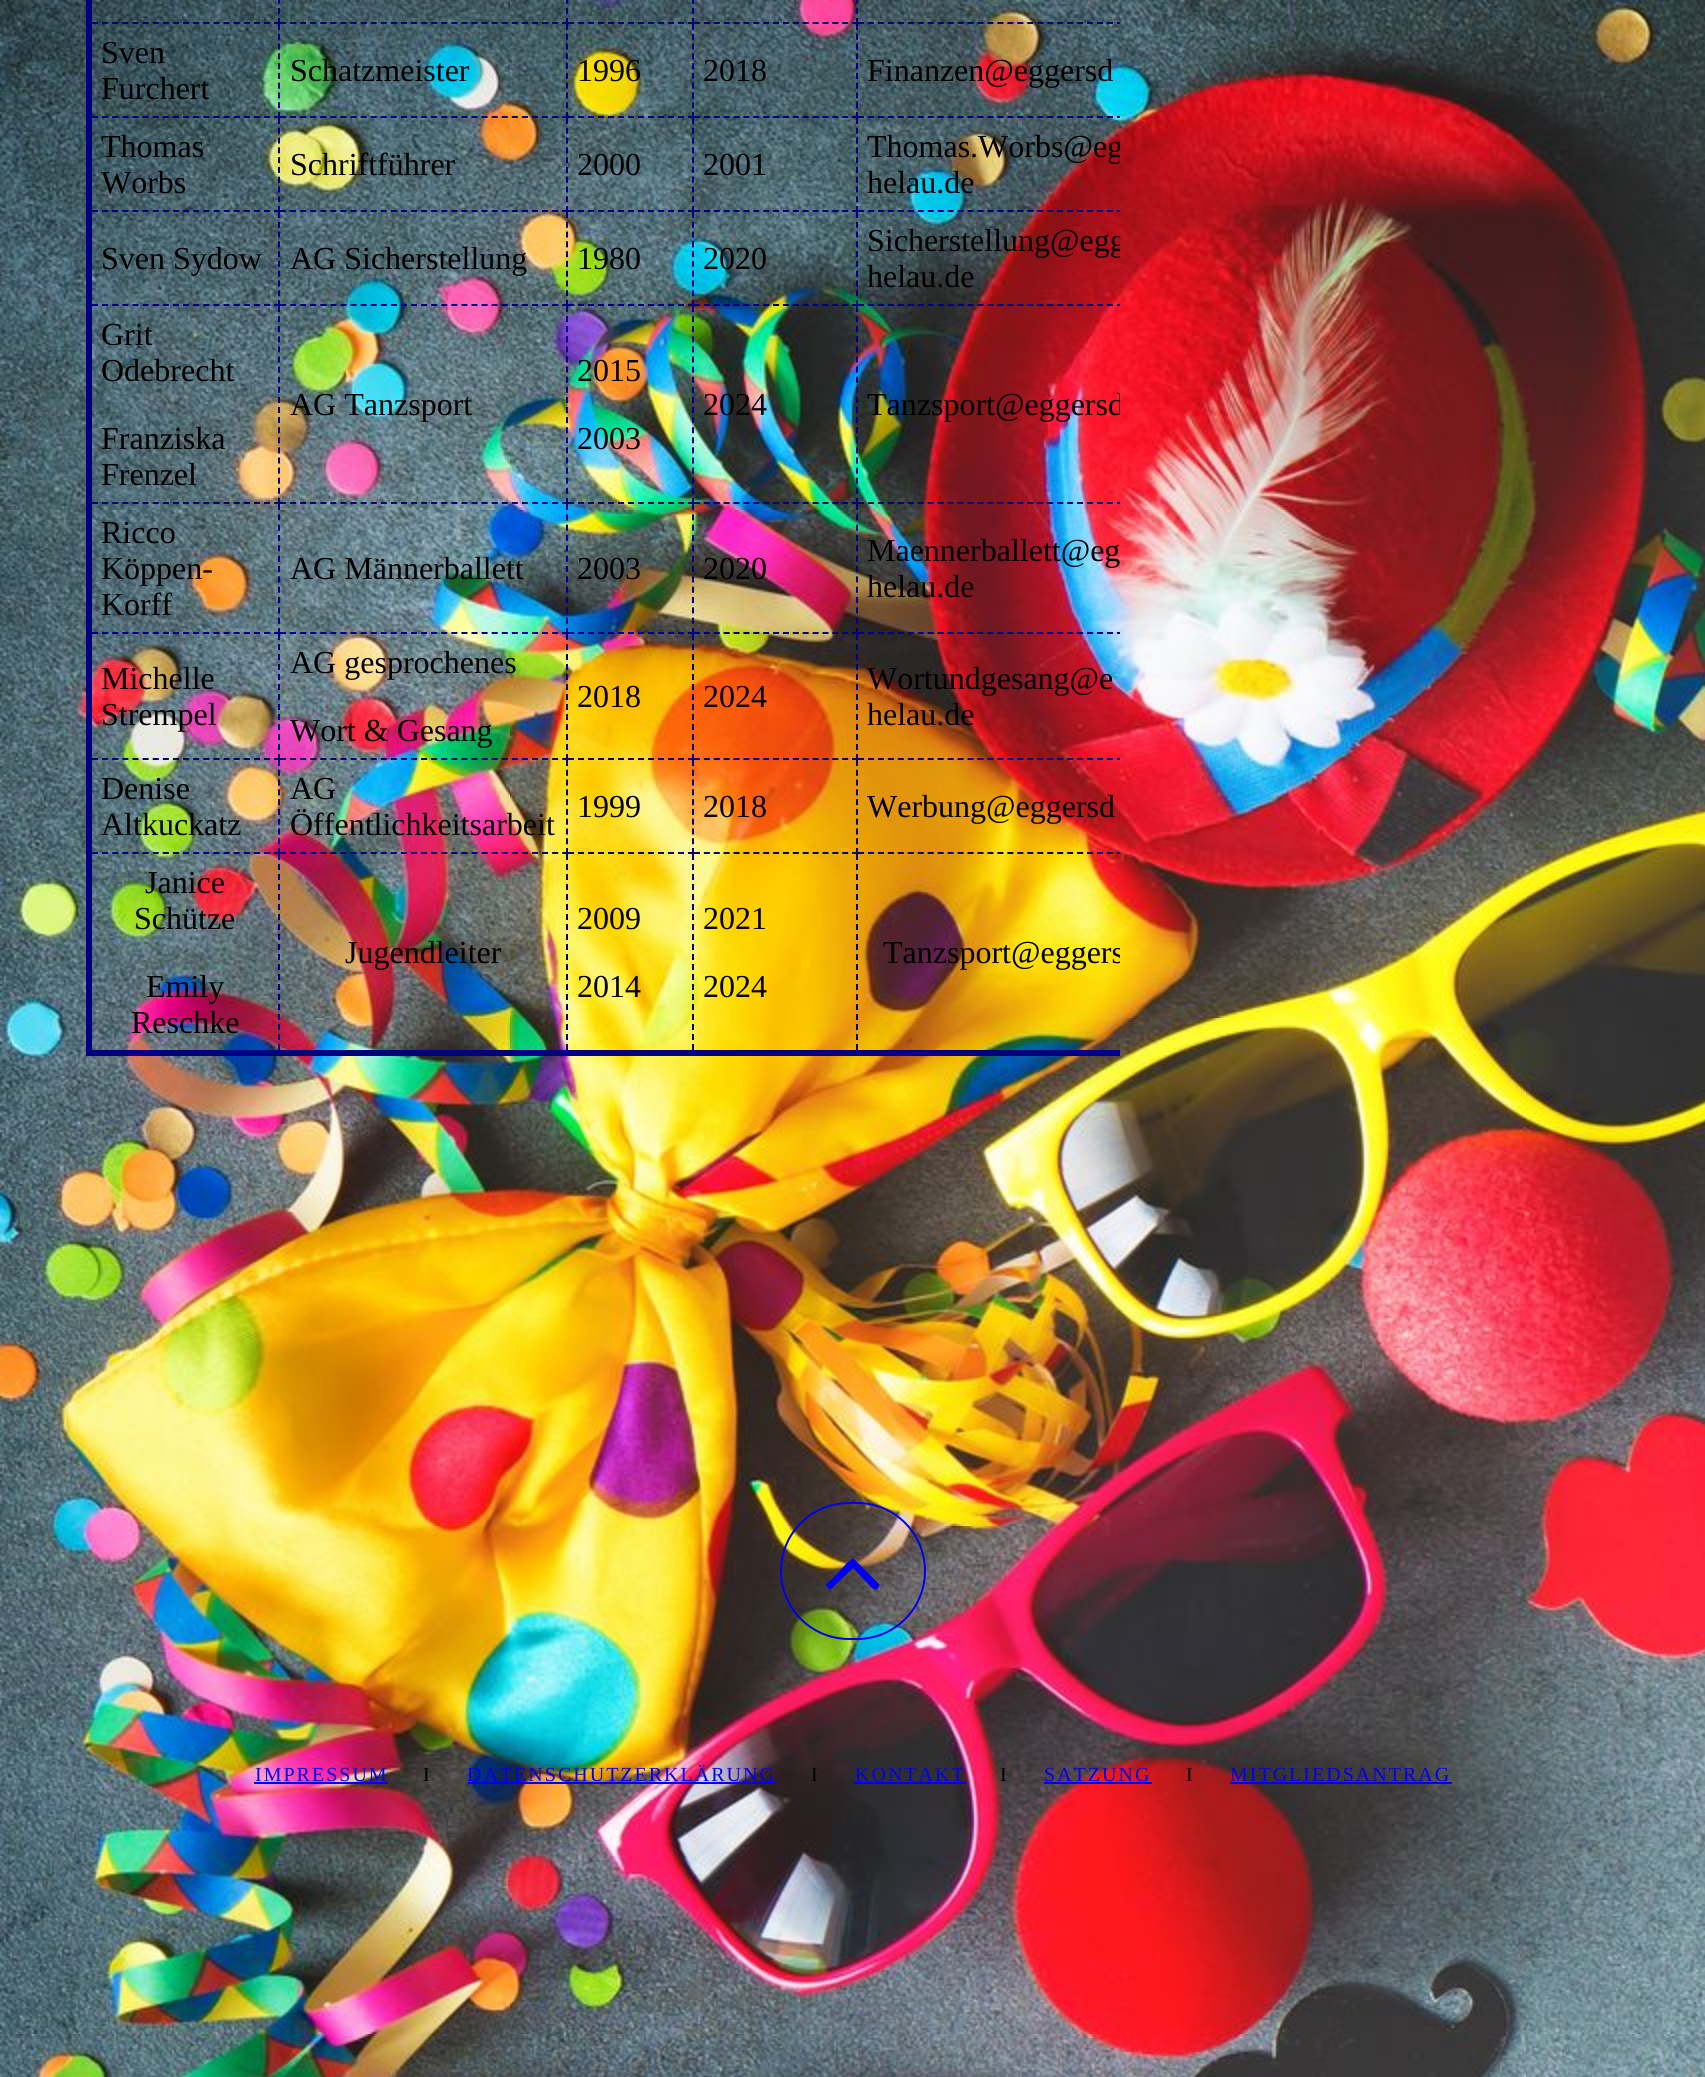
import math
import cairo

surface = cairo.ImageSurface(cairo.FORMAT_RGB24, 1705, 2077)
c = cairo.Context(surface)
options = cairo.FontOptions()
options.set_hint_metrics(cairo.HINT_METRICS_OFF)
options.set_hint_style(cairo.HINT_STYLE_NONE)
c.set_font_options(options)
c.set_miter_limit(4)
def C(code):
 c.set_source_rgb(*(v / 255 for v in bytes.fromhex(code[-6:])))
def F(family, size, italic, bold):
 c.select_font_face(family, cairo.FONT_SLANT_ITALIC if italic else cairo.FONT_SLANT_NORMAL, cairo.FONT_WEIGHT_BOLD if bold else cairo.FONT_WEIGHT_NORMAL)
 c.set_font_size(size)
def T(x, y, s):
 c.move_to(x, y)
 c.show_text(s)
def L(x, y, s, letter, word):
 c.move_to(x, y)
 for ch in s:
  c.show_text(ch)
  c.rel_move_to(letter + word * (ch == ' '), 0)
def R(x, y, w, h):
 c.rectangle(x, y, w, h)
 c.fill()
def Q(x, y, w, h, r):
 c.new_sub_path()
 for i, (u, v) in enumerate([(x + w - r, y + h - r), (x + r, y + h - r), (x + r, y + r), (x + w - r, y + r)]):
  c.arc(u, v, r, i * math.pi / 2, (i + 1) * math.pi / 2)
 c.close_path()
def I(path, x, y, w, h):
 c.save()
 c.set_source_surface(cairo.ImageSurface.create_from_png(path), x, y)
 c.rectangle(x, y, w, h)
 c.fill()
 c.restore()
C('ffffff')
c.paint()
I('1.png',0,0,1705,2077)
c.save()
c.rectangle(86,0,1034,1076)
c.clip()
c.rectangle(89,-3,1236,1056)
C('000080')
c.set_line_width(6)
c.stroke()
c.restore()
c.new_path()
c.move_to(279,-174)
c.line_to(279,24)
C('000080')
c.set_dash([6,4.1])
c.stroke()
c.new_path()
c.move_to(92,23)
c.line_to(280,23)
c.set_dash([6,4.12])
c.stroke()
c.new_path()
c.move_to(567,-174)
c.line_to(567,24)
c.set_dash([6,4.1])
c.stroke()
c.new_path()
c.move_to(280,23)
c.line_to(568,23)
c.set_dash([6,4.08])
c.stroke()
c.new_path()
c.move_to(693,-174)
c.line_to(693,24)
c.set_dash([6,4.1])
c.stroke()
c.new_path()
c.move_to(568,23)
c.line_to(694,23)
c.set_dash([6,4])
c.stroke()
c.new_path()
c.move_to(857,-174)
c.line_to(857,24)
c.set_dash([6,4.1])
c.stroke()
c.new_path()
c.move_to(694,23)
c.line_to(858,23)
c.set_dash([6,3.88])
c.stroke()
c.save()
c.rectangle(86,0,1034,1076)
c.clip()
c.new_path()
c.move_to(858,23)
c.line_to(1322,23)
c.set_dash([6,3.96])
c.stroke()
c.restore()
c.new_path()
c.move_to(279,24)
c.line_to(279,118)
c.set_dash([6,3.78])
c.stroke()
c.new_path()
c.move_to(92,117)
c.line_to(280,117)
c.set_dash([6,4.12])
c.stroke()
F('Liberation Serif',32,0,0)
C('000000')
T(101,63,'Sven')
T(101,99,'Furchert')
c.new_path()
c.move_to(567,24)
c.line_to(567,118)
C('000080')
c.set_dash([6,3.78])
c.stroke()
c.new_path()
c.move_to(280,117)
c.line_to(568,117)
c.set_dash([6,4.08])
c.stroke()
C('000000')
T(290,81,'Schatzmeister')
c.new_path()
c.move_to(693,24)
c.line_to(693,118)
C('000080')
c.set_dash([6,3.78])
c.stroke()
c.new_path()
c.move_to(568,117)
c.line_to(694,117)
c.set_dash([6,4])
c.stroke()
C('000000')
T(577,81,'1996')
c.new_path()
c.move_to(857,24)
c.line_to(857,118)
C('000080')
c.set_dash([6,3.78])
c.stroke()
c.new_path()
c.move_to(694,117)
c.line_to(858,117)
c.set_dash([6,3.88])
c.stroke()
C('000000')
T(703,81,'2018')
c.save()
c.rectangle(86,0,1034,1076)
c.clip()
c.new_path()
c.move_to(858,117)
c.line_to(1322,117)
C('000080')
c.set_dash([6,3.96])
c.stroke()
c.restore()
T(867,81,'Finanzen@eggersd')
c.new_path()
c.move_to(279,118)
c.line_to(279,212)
C('000080')
c.set_dash([6,3.78])
c.stroke()
c.new_path()
c.move_to(92,211)
c.line_to(280,211)
c.set_dash([6,4.12])
c.stroke()
C('000000')
T(101,157,'Thomas')
T(101,193,'Worbs')
c.new_path()
c.move_to(567,118)
c.line_to(567,212)
C('000080')
c.set_dash([6,3.78])
c.stroke()
c.new_path()
c.move_to(280,211)
c.line_to(568,211)
c.set_dash([6,4.08])
c.stroke()
C('000000')
T(290,175,'Schriftführer')
c.new_path()
c.move_to(693,118)
c.line_to(693,212)
C('000080')
c.set_dash([6,3.78])
c.stroke()
c.new_path()
c.move_to(568,211)
c.line_to(694,211)
c.set_dash([6,4])
c.stroke()
C('000000')
T(577,175,'2000')
c.new_path()
c.move_to(857,118)
c.line_to(857,212)
C('000080')
c.set_dash([6,3.78])
c.stroke()
c.new_path()
c.move_to(694,211)
c.line_to(858,211)
c.set_dash([6,3.88])
c.stroke()
C('000000')
T(703,175,'2001')
c.save()
c.rectangle(86,0,1034,1076)
c.clip()
c.new_path()
c.move_to(858,211)
c.line_to(1322,211)
C('000080')
c.set_dash([6,3.96])
c.stroke()
C('000000')
T(867,157,'Thomas.Worbs@eg')
c.restore()
T(867,193,'helau.de')
c.new_path()
c.move_to(279,212)
c.line_to(279,306)
C('000080')
c.set_dash([6,3.78])
c.stroke()
c.new_path()
c.move_to(92,305)
c.line_to(280,305)
c.set_dash([6,4.12])
c.stroke()
C('000000')
T(101,269,'Sven Sydow')
c.new_path()
c.move_to(567,212)
c.line_to(567,306)
C('000080')
c.set_dash([6,3.78])
c.stroke()
c.new_path()
c.move_to(280,305)
c.line_to(568,305)
c.set_dash([6,4.08])
c.stroke()
C('000000')
T(290,269,'AG Sicherstellung')
c.new_path()
c.move_to(693,212)
c.line_to(693,306)
C('000080')
c.set_dash([6,3.78])
c.stroke()
c.new_path()
c.move_to(568,305)
c.line_to(694,305)
c.set_dash([6,4])
c.stroke()
C('000000')
T(577,269,'1980')
c.new_path()
c.move_to(857,212)
c.line_to(857,306)
C('000080')
c.set_dash([6,3.78])
c.stroke()
c.new_path()
c.move_to(694,305)
c.line_to(858,305)
c.set_dash([6,3.88])
c.stroke()
C('000000')
T(703,269,'2020')
c.save()
c.rectangle(86,0,1034,1076)
c.clip()
c.new_path()
c.move_to(858,305)
c.line_to(1322,305)
C('000080')
c.set_dash([6,3.96])
c.stroke()
C('000000')
T(867,251,'Sicherstellung@egg')
c.restore()
T(867,287,'helau.de')
c.new_path()
c.move_to(279,306)
c.line_to(279,504)
C('000080')
c.set_dash([6,4.1])
c.stroke()
c.new_path()
c.move_to(92,503)
c.line_to(280,503)
c.set_dash([6,4.12])
c.stroke()
C('000000')
T(101,345,'Grit')
T(101,381,'Odebrecht')
T(101,449,'Franziska')
T(101,485,'Frenzel')
c.new_path()
c.move_to(567,306)
c.line_to(567,504)
C('000080')
c.set_dash([6,4.1])
c.stroke()
c.new_path()
c.move_to(280,503)
c.line_to(568,503)
c.set_dash([6,4.08])
c.stroke()
C('000000')
T(290,415,'AG Tanzsport')
c.new_path()
c.move_to(693,306)
c.line_to(693,504)
C('000080')
c.set_dash([6,4.1])
c.stroke()
c.new_path()
c.move_to(568,503)
c.line_to(694,503)
c.set_dash([6,4])
c.stroke()
C('000000')
T(577,381,'2015')
T(577,449,'2003')
c.new_path()
c.move_to(857,306)
c.line_to(857,504)
C('000080')
c.set_dash([6,4.1])
c.stroke()
c.new_path()
c.move_to(694,503)
c.line_to(858,503)
c.set_dash([6,3.88])
c.stroke()
C('000000')
T(703,415,'2024')
c.save()
c.rectangle(86,0,1034,1076)
c.clip()
c.new_path()
c.move_to(858,503)
c.line_to(1322,503)
C('000080')
c.set_dash([6,3.96])
c.stroke()
C('000000')
T(867,415,'Tanzsport@eggersd')
c.restore()
c.new_path()
c.move_to(279,504)
c.line_to(279,634)
C('000080')
c.set_dash([6,4.34])
c.stroke()
c.new_path()
c.move_to(92,633)
c.line_to(280,633)
c.set_dash([6,4.12])
c.stroke()
C('000000')
T(101,543,'Ricco')
T(101,579,'Köppen-')
T(101,615,'Korff')
c.new_path()
c.move_to(567,504)
c.line_to(567,634)
C('000080')
c.set_dash([6,4.34])
c.stroke()
c.new_path()
c.move_to(280,633)
c.line_to(568,633)
c.set_dash([6,4.08])
c.stroke()
C('000000')
T(290,579,'AG Männerballett')
c.new_path()
c.move_to(693,504)
c.line_to(693,634)
C('000080')
c.set_dash([6,4.34])
c.stroke()
c.new_path()
c.move_to(568,633)
c.line_to(694,633)
c.set_dash([6,4])
c.stroke()
C('000000')
T(577,579,'2003')
c.new_path()
c.move_to(857,504)
c.line_to(857,634)
C('000080')
c.set_dash([6,4.34])
c.stroke()
c.new_path()
c.move_to(694,633)
c.line_to(858,633)
c.set_dash([6,3.88])
c.stroke()
C('000000')
T(703,579,'2020')
c.save()
c.rectangle(86,0,1034,1076)
c.clip()
c.new_path()
c.move_to(858,633)
c.line_to(1322,633)
C('000080')
c.set_dash([6,3.96])
c.stroke()
c.restore()
T(867,561,'Maennerballett@eg')
T(867,597,'helau.de')
c.new_path()
c.move_to(279,634)
c.line_to(279,760)
C('000080')
c.set_dash([6,4])
c.stroke()
c.new_path()
c.move_to(92,759)
c.line_to(280,759)
c.set_dash([6,4.12])
c.stroke()
C('000000')
T(101,689,'Michelle')
T(101,725,'Strempel')
c.new_path()
c.move_to(567,634)
c.line_to(567,760)
C('000080')
c.set_dash([6,4])
c.stroke()
c.new_path()
c.move_to(280,759)
c.line_to(568,759)
c.set_dash([6,4.08])
c.stroke()
C('000000')
T(290,673,'AG gesprochenes')
T(290,741,'Wort & Gesang')
c.new_path()
c.move_to(693,634)
c.line_to(693,760)
C('000080')
c.set_dash([6,4])
c.stroke()
c.new_path()
c.move_to(568,759)
c.line_to(694,759)
c.stroke()
C('000000')
T(577,707,'2018')
c.new_path()
c.move_to(857,634)
c.line_to(857,760)
C('000080')
c.stroke()
c.new_path()
c.move_to(694,759)
c.line_to(858,759)
c.set_dash([6,3.88])
c.stroke()
C('000000')
T(703,707,'2024')
c.save()
c.rectangle(86,0,1034,1076)
c.clip()
c.new_path()
c.move_to(858,759)
c.line_to(1322,759)
C('000080')
c.set_dash([6,3.96])
c.stroke()
c.restore()
T(867,689,'Wortundgesang@e')
T(867,725,'helau.de')
c.new_path()
c.move_to(279,760)
c.line_to(279,854)
C('000080')
c.set_dash([6,3.78])
c.stroke()
c.new_path()
c.move_to(92,853)
c.line_to(280,853)
c.set_dash([6,4.12])
c.stroke()
C('000000')
T(101,799,'Denise')
T(101,835,'Altkuckatz')
c.new_path()
c.move_to(567,760)
c.line_to(567,854)
C('000080')
c.set_dash([6,3.78])
c.stroke()
c.new_path()
c.move_to(280,853)
c.line_to(568,853)
c.set_dash([6,4.08])
c.stroke()
C('000000')
T(290,799,'AG')
T(290,835,'Öffentlichkeitsarbeit')
c.new_path()
c.move_to(693,760)
c.line_to(693,854)
C('000080')
c.set_dash([6,3.78])
c.stroke()
c.new_path()
c.move_to(568,853)
c.line_to(694,853)
c.set_dash([6,4])
c.stroke()
C('000000')
T(577,817,'1999')
c.new_path()
c.move_to(857,760)
c.line_to(857,854)
C('000080')
c.set_dash([6,3.78])
c.stroke()
c.new_path()
c.move_to(694,853)
c.line_to(858,853)
c.set_dash([6,3.88])
c.stroke()
C('000000')
T(703,817,'2018')
c.save()
c.rectangle(86,0,1034,1076)
c.clip()
c.new_path()
c.move_to(858,853)
c.line_to(1322,853)
C('000080')
c.set_dash([6,3.96])
c.stroke()
c.restore()
T(867,817,'Werbung@eggersd')
c.new_path()
c.move_to(279,854)
c.line_to(279,1050)
C('000080')
c.set_dash([6,4])
c.stroke()
C('000000')
T(145,893,'Janice')
T(134,929,'Schütze')
T(146,997,'Emily')
T(131,1033,'Reschke')
c.new_path()
c.move_to(567,854)
c.line_to(567,1050)
C('000080')
c.stroke()
C('000000')
T(345,963,'Jugendleiter')
c.new_path()
c.move_to(693,854)
c.line_to(693,1050)
C('000080')
c.stroke()
C('000000')
T(577,929,'2009')
T(577,997,'2014')
c.new_path()
c.move_to(857,854)
c.line_to(857,1050)
C('000080')
c.stroke()
C('000000')
T(703,929,'2021')
T(703,997,'2024')
c.save()
c.rectangle(86,0,1034,1076)
c.clip()
T(883,963,'Tanzsport@eggers')
c.restore()
Q(781,1503,144,136,68)
C('0000ee')
c.set_dash([])
c.stroke()
c.new_path()
c.move_to(879,1584)
c.curve_to(880,1585,879,1587,878,1588)
c.curve_to(874,1591,874,1589,870,1586)
c.line_to(853,1568)
c.line_to(831,1589)
c.curve_to(830,1590,829,1589,828,1588)
c.curve_to(824,1584,827,1584,831,1580)
c.line_to(847,1563)
c.curve_to(854,1557,852,1557,858,1563)
c.close_path()
c.fill()
F('Liberation Serif',20,0,0)
L(255,1781,'IMPRESSUM',2,0)
R(254,1782,134,2)
C('000000')
L(423,1781,'I',2,0)
C('0000ee')
L(467,1781,'DATENSCHUTZERKLÄRUNG',2,0)
R(468,1782,308,2)
C('000000')
L(811,1781,'I',2,0)
C('0000ee')
L(855,1781,'KONTAKT',2,0)
R(854,1782,112,2)
C('000000')
L(1000,1781,'I',2,0)
C('0000ee')
L(1044,1781,'SATZUNG',2,0)
R(1044,1782,108,2)
C('000000')
L(1186,1781,'I',2,0)
C('0000ee')
L(1230,1781,'MITGLIEDSANTRAG',2,0)
R(1230,1782,222,2)
surface.write_to_png('o.png')
